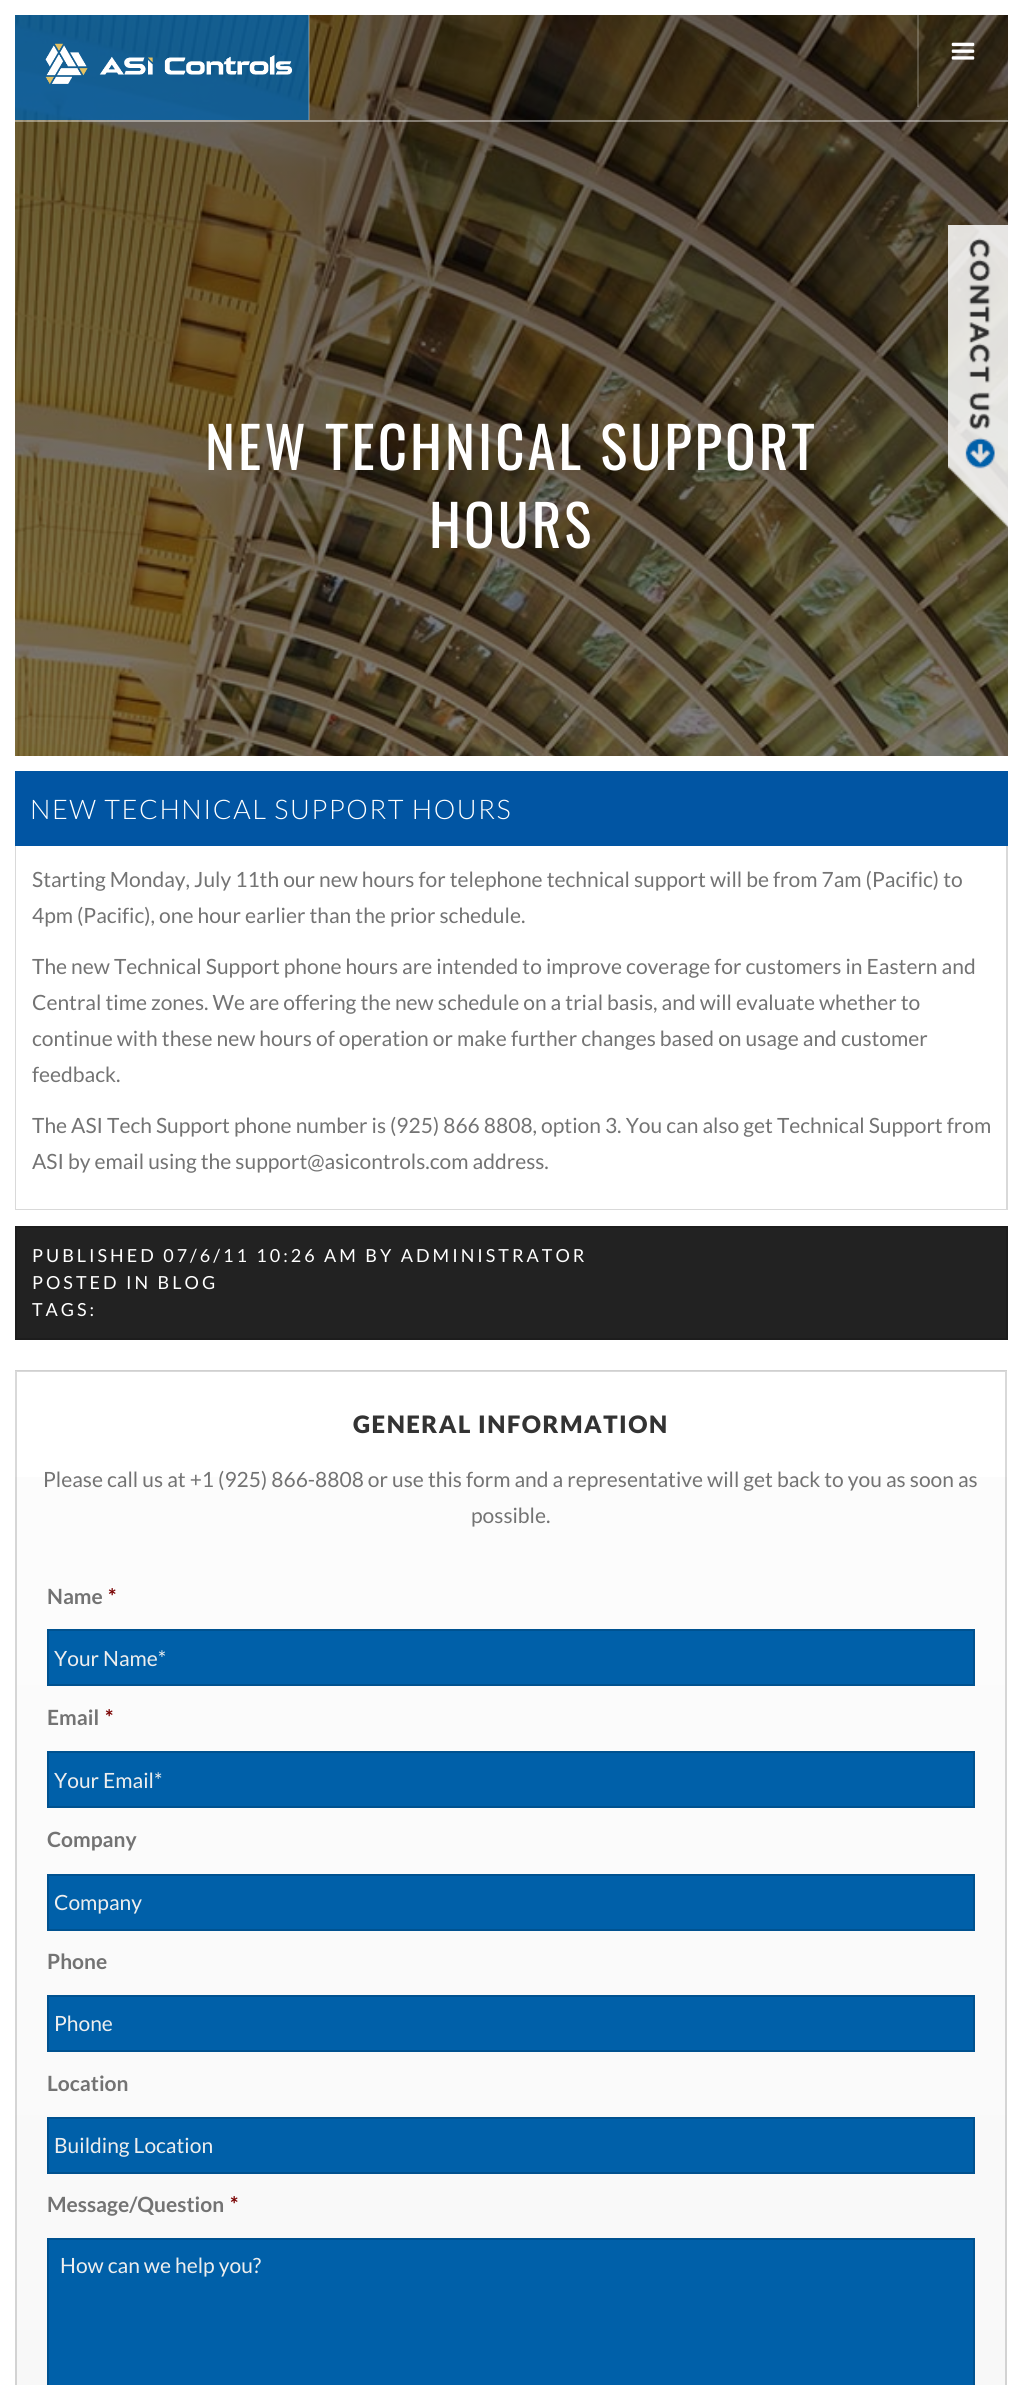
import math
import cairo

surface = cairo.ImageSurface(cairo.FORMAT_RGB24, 1023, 2385)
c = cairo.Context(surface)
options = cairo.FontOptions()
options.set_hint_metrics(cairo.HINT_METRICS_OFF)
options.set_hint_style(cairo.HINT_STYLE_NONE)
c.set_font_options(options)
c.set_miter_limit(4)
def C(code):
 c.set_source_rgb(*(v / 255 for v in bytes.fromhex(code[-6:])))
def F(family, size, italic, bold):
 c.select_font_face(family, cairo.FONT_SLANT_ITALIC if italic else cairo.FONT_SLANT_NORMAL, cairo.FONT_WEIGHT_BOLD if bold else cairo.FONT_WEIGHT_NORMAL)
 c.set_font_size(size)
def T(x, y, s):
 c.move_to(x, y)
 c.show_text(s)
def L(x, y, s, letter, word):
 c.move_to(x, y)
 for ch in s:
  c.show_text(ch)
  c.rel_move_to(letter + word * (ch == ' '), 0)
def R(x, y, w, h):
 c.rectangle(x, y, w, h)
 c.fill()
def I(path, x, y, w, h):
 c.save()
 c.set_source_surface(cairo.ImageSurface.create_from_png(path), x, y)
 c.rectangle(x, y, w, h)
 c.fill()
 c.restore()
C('ffffff')
c.paint()
I('3.png',15,15,993,741)
c.set_source_rgba(1,1,1,0.4)
R(15,120,993,2)
c.set_source_rgba(0,0.376,0.663,0.8)
R(15,15,294,105)
c.set_source_rgba(1,1,1,0.22)
R(308,15,2,105)
I('1.png',45,43,247,41)
c.set_source_rgba(1,1,1,0.2)
R(917,15,2,92)
I('2.png',951,42,24,18)
F('Oswald',57,0,0)
C('ffffff')
L(205,470,'NEW TECHNICAL SUPPORT',3,0)
L(429,548,'HOURS',3,0)
I('4.png',948,225,60,303)
C('0155a3')
R(15,771,993,75)
F('Lato Light',27,0,0)
C('ffffff')
L(30,819,'NEW TECHNICAL SUPPORT HOURS',1.5,0)
C('d9d9d9')
c.new_path()
c.move_to(1008,846)
c.line_to(1008,1210)
c.line_to(1006,1209)
c.line_to(1006,846)
c.close_path()
c.fill()
c.set_source_rgba(0,0,0,0.15)
c.new_path()
c.move_to(1008,1210)
c.line_to(15,1210)
c.line_to(16,1209)
c.line_to(1006,1209)
c.close_path()
c.fill()
c.new_path()
c.move_to(15,1210)
c.line_to(15,846)
c.line_to(16,846)
c.line_to(16,1209)
c.close_path()
c.fill()
F('Lato',21,0,0)
C('737373')
T(32,887,'Starting Monday, July 11th our new hours for telephone technical support will be from 7am (Pacific) to')
T(32,923,'4pm (Pacific), one hour earlier than the prior schedule.')
T(32,974,'The new Technical Support phone hours are intended to improve coverage for customers in Eastern and')
T(32,1010,'Central time zones. We are offering the new schedule on a trial basis, and will evaluate whether to')
T(32,1046,'continue with these new hours of operation or make further changes based on usage and customer')
T(32,1082,'feedback.')
T(32,1133,'The ASI Tech Support phone number is (925) 866 8808, option 3. You can also get Technical Support from')
T(32,1169,'ASI by email using the support@asicontrols.com address.')
C('222222')
c.rectangle(16,1227,991,112)
c.fill_preserve()
C('1d1d1d')
c.stroke()
F('Lato',18,0,0)
C('ffffff')
L(32,1262,'PUBLISHED 07/6/11 10:26 AM BY ADMINISTRATOR',3,0)
L(32,1289,'POSTED IN BLOG',3,0)
L(32,1316,'TAGS:',3,0)
gradient = cairo.LinearGradient(511,-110,511,1371)
gradient.add_color_stop_rgba(0,0.988,0.988,0.988,1)
gradient.add_color_stop_rgba(1,0.961,0.961,0.961,1)
c.set_source(gradient)
R(15,1370,992,1)
gradient = cairo.LinearGradient(511,1371,511,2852)
gradient.add_color_stop_rgba(0,0.992,0.992,0.992,1)
gradient.add_color_stop_rgba(1,0.965,0.965,0.965,1)
c.set_source(gradient)
R(15,1477,992,908)
c.rectangle(16,1371,990,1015)
c.set_source_rgba(0,0,0,0.15)
c.stroke()
F('Lato Black',24,0,0)
C('333333')
L(353,1433,'GENERAL INFORMATION',1.5,0)
F('Lato',21,0,0)
C('737373')
T(43,1487,'Please call us at +1 (925) 866-8808 or use this form and a representative will get back to you as soon as')
T(471,1523,'possible.')
F('Lato',21,0,1)
T(47,1604,'Name')
C('790000')
T(108,1604,'*')
C('0060a9')
c.rectangle(48,1630,926,55)
c.fill_preserve()
C('005290')
c.stroke()
F('Lato',21,0,0)
C('eeeeee')
T(54,1666,'Your Name*')
F('Lato',21,0,1)
C('737373')
T(47,1725,'Email')
C('790000')
T(105,1725,'*')
C('0060a9')
c.rectangle(48,1752,926,55)
c.fill_preserve()
C('005290')
c.stroke()
F('Lato',21,0,0)
C('eeeeee')
T(54,1788,'Your Email*')
F('Lato',21,0,1)
C('737373')
T(47,1847,'Company')
C('0060a9')
c.rectangle(48,1875,926,55)
c.fill_preserve()
C('005290')
c.stroke()
F('Lato',21,0,0)
C('eeeeee')
T(54,1910,'Company')
F('Lato',21,0,1)
C('737373')
T(47,1969,'Phone')
C('0060a9')
c.rectangle(48,1996,926,55)
c.fill_preserve()
C('005290')
c.stroke()
F('Lato',21,0,0)
C('eeeeee')
T(54,2031,'Phone')
F('Lato',21,0,1)
C('737373')
T(47,2091,'Location')
C('0060a9')
c.rectangle(48,2118,926,55)
c.fill_preserve()
C('005290')
c.stroke()
F('Lato',21,0,0)
C('eeeeee')
T(54,2153,'Building Location')
F('Lato',21,0,1)
C('737373')
T(47,2212,'Message/Question')
C('790000')
T(230,2212,'*')
C('0060a9')
c.rectangle(48,2239,926,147)
c.fill_preserve()
C('005290')
c.stroke()
F('Lato',21,0,0)
C('eeeeee')
T(60,2273,'How can we help you?')
surface.write_to_png('o.png')
